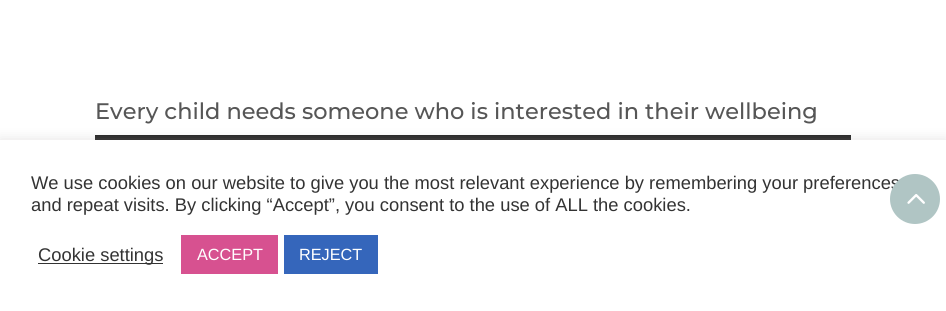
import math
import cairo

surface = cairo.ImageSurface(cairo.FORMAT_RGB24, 946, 311)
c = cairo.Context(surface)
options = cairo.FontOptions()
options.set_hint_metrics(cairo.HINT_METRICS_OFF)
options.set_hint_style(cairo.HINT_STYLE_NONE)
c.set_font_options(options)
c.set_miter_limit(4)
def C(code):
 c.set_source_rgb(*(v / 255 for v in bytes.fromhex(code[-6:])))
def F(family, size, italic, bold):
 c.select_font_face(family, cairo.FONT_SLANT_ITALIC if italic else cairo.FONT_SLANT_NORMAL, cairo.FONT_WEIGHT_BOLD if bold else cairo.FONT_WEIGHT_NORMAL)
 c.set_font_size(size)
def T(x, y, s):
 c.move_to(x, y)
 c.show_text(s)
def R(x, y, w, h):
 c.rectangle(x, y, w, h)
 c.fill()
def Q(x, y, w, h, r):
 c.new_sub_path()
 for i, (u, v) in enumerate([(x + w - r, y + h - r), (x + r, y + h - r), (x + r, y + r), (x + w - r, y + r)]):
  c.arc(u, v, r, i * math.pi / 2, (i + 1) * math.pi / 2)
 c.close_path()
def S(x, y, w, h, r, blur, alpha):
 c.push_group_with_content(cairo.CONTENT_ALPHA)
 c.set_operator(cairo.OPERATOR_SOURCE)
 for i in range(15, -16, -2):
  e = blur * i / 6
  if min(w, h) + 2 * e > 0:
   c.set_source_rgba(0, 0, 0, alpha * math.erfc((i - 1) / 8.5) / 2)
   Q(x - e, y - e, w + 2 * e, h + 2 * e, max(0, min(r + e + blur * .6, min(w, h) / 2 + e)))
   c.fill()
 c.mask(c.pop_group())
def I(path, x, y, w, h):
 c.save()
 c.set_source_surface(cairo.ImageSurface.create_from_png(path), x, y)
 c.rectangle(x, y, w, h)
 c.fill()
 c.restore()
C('ffffff')
c.paint()
F('Montserrat Thin',22.5,0,0)
C('565656')
T(95,119,'Every child needs someone who is interested in their wellbeing')
C('222222')
R(95,135,756,5)
C('acabab')
S(0,139,946,171,0,6,.3)
C('ffffff')
R(0,140,946,171)
F('Liberation Sans',18.35,0,0)
C('333333')
T(31,189,'We use cookies on our website to give you the most relevant experience by remembering your preferences')
T(31,211,'and repeat visits. By clicking “Accept”, you consent to the use of ALL the cookies.')
R(38,263,125,1)
T(38,261,'Cookie settings')
C('d75190')
R(181,235,97,39)
F('Liberation Sans',16.25,0,0)
C('ffffff')
T(197,260,'ACCEPT')
C('3566bb')
R(284,235,94,39)
C('ffffff')
T(299,260,'REJECT')
C('b0c5c4')
c.new_path()
c.arc(915,199,25,0,2 * math.pi)
c.fill()
I('1.png',907,194,18,10)
surface.write_to_png('o.png')
